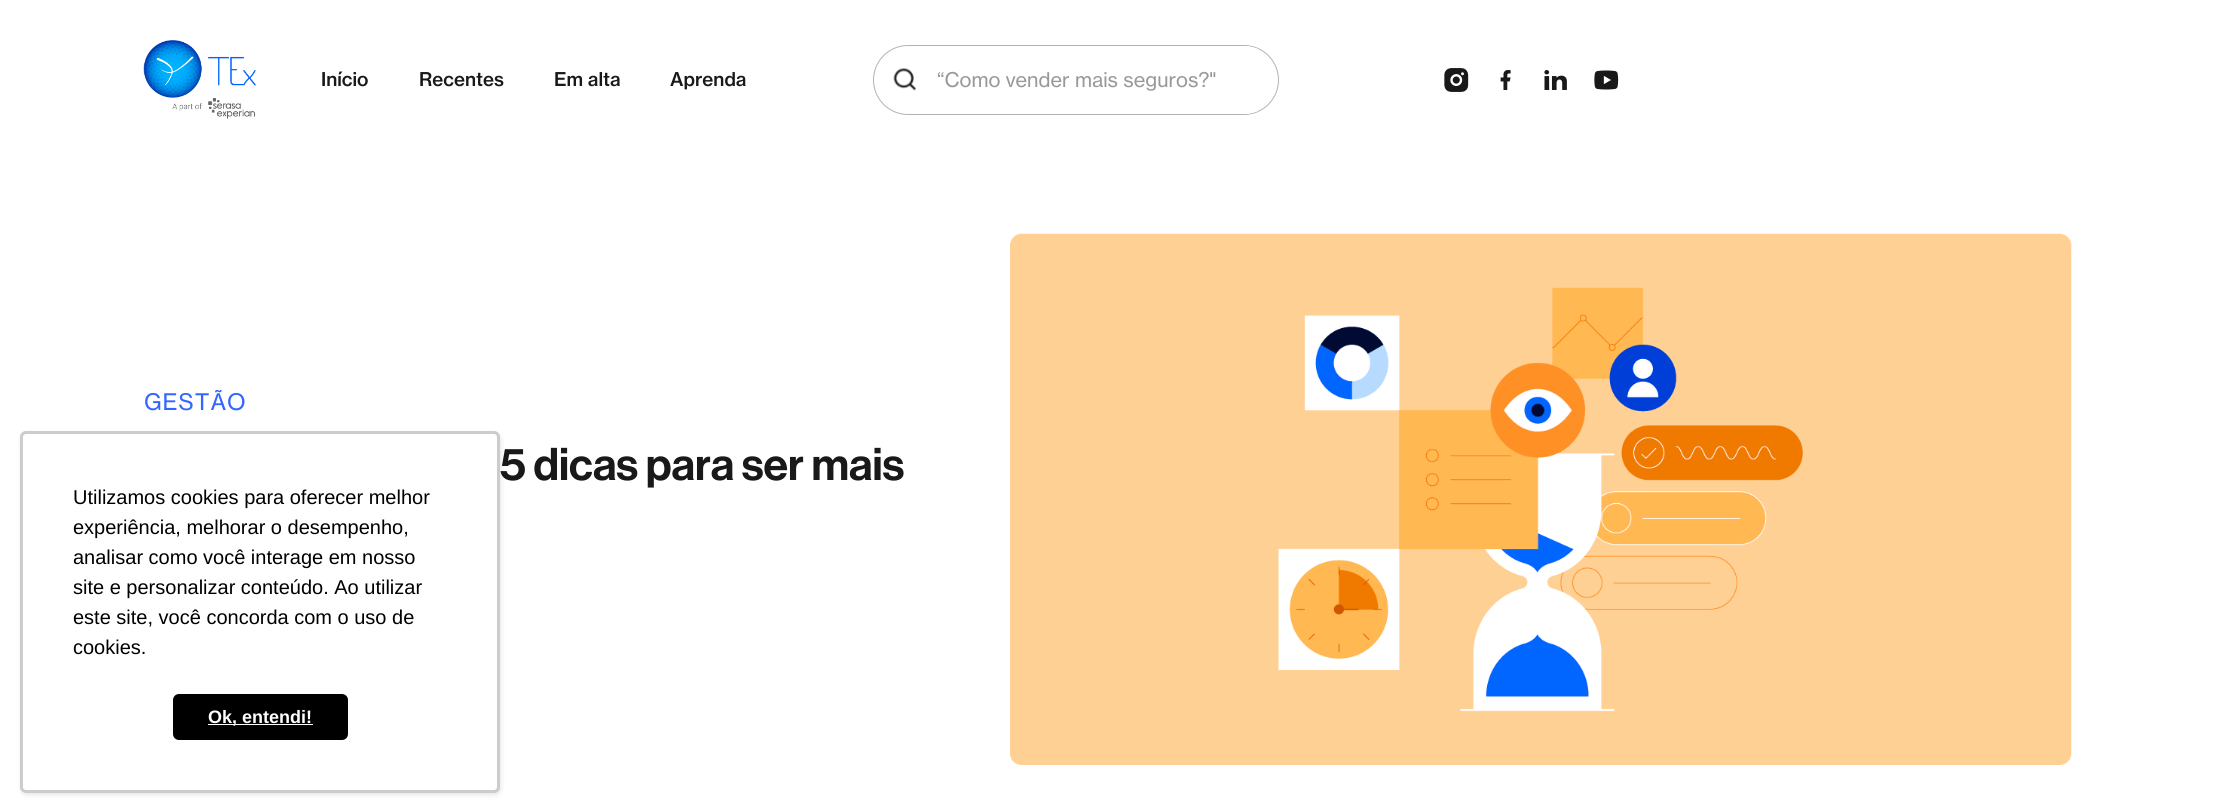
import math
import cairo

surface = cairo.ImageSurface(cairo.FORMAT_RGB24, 2214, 812)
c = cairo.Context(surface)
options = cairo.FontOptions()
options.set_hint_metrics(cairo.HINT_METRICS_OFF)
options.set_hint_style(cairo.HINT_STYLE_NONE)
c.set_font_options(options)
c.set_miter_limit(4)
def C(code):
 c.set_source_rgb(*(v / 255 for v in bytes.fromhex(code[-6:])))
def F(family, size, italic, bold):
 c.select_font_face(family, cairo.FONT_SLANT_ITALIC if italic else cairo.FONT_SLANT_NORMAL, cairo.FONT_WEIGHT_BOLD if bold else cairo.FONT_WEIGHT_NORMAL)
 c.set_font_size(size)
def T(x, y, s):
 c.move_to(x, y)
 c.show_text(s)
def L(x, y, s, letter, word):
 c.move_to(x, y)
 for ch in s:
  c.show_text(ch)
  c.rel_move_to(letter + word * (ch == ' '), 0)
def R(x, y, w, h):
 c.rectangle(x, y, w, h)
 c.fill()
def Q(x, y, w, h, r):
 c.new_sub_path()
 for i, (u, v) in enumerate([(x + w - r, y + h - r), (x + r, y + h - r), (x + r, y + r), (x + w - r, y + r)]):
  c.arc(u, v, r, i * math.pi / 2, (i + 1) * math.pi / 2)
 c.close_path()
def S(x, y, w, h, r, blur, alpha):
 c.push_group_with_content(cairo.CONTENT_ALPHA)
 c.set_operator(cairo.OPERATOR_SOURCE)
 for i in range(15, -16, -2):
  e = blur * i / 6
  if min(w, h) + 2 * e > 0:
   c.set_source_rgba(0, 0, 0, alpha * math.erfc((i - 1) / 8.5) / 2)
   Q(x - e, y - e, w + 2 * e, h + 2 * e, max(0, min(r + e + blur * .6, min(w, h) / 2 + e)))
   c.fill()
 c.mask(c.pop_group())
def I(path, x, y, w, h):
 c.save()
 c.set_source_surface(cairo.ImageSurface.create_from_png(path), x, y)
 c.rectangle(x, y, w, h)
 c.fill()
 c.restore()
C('ffffff')
c.paint()
I('1.png',143,40,114,79)
F('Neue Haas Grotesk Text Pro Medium',18.75,0,0)
C('191919')
T(321,86,'Início')
T(419,86,'Recentes')
T(554,86,'Em alta')
T(670,86,'Aprenda')
Q(873.5,45.5,405,69,34.5)
C('b3b3b3')
c.set_line_width(1)
c.stroke()
I('2.png',893,68,23,23)
c.save()
Q(874,46,404,68,34)
c.clip()
C('ffffff')
R(916,46,342,68)
c.restore()
F('Neue Haas Grotesk Text Pro',20,0,0)
C('999999')
T(937,87,'“Como vender mais seguros?"')
I('3.png',1444,68,25,24)
I('4.png',1500,70,11,20)
I('5.png',1544,70,23,20)
I('6.png',1594,70,25,20)
F('Neue Haas Grotesk Text Pro',22.5,0,0)
C('3366ff')
L(144,410,'GESTÃO',1,0)
F('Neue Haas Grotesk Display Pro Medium',45,0,0)
C('191919')
T(500,480,'5 dicas para ser mais')
I('7.png',1010,233,1062,532)
C('000000')
S(21,434,480,361,6,2.5,.1)
C('ffffff')
Q(20,431,480,362,6)
c.fill()
Q(21.5,432.5,477,359,4.5)
c.set_source_rgba(0,0,0,0.2)
c.set_line_width(3)
c.stroke()
F('Liberation Sans',20,0,0)
C('000000')
T(73,504,'Utilizamos cookies para oferecer melhor')
T(73,534,'experiência, melhorar o desempenho,')
T(73,564,'analisar como você interage em nosso')
T(73,594,'site e personalizar conteúdo. Ao utilizar')
T(73,624,'este site, você concorda com o uso de')
T(73,654,'cookies.')
Q(173,694,175,46,6)
c.fill()
C('ffffff')
R(208,724,105,1)
F('Liberation Sans',18,0,1)
T(208,723,'Ok, entendi!')
surface.write_to_png('o.png')
